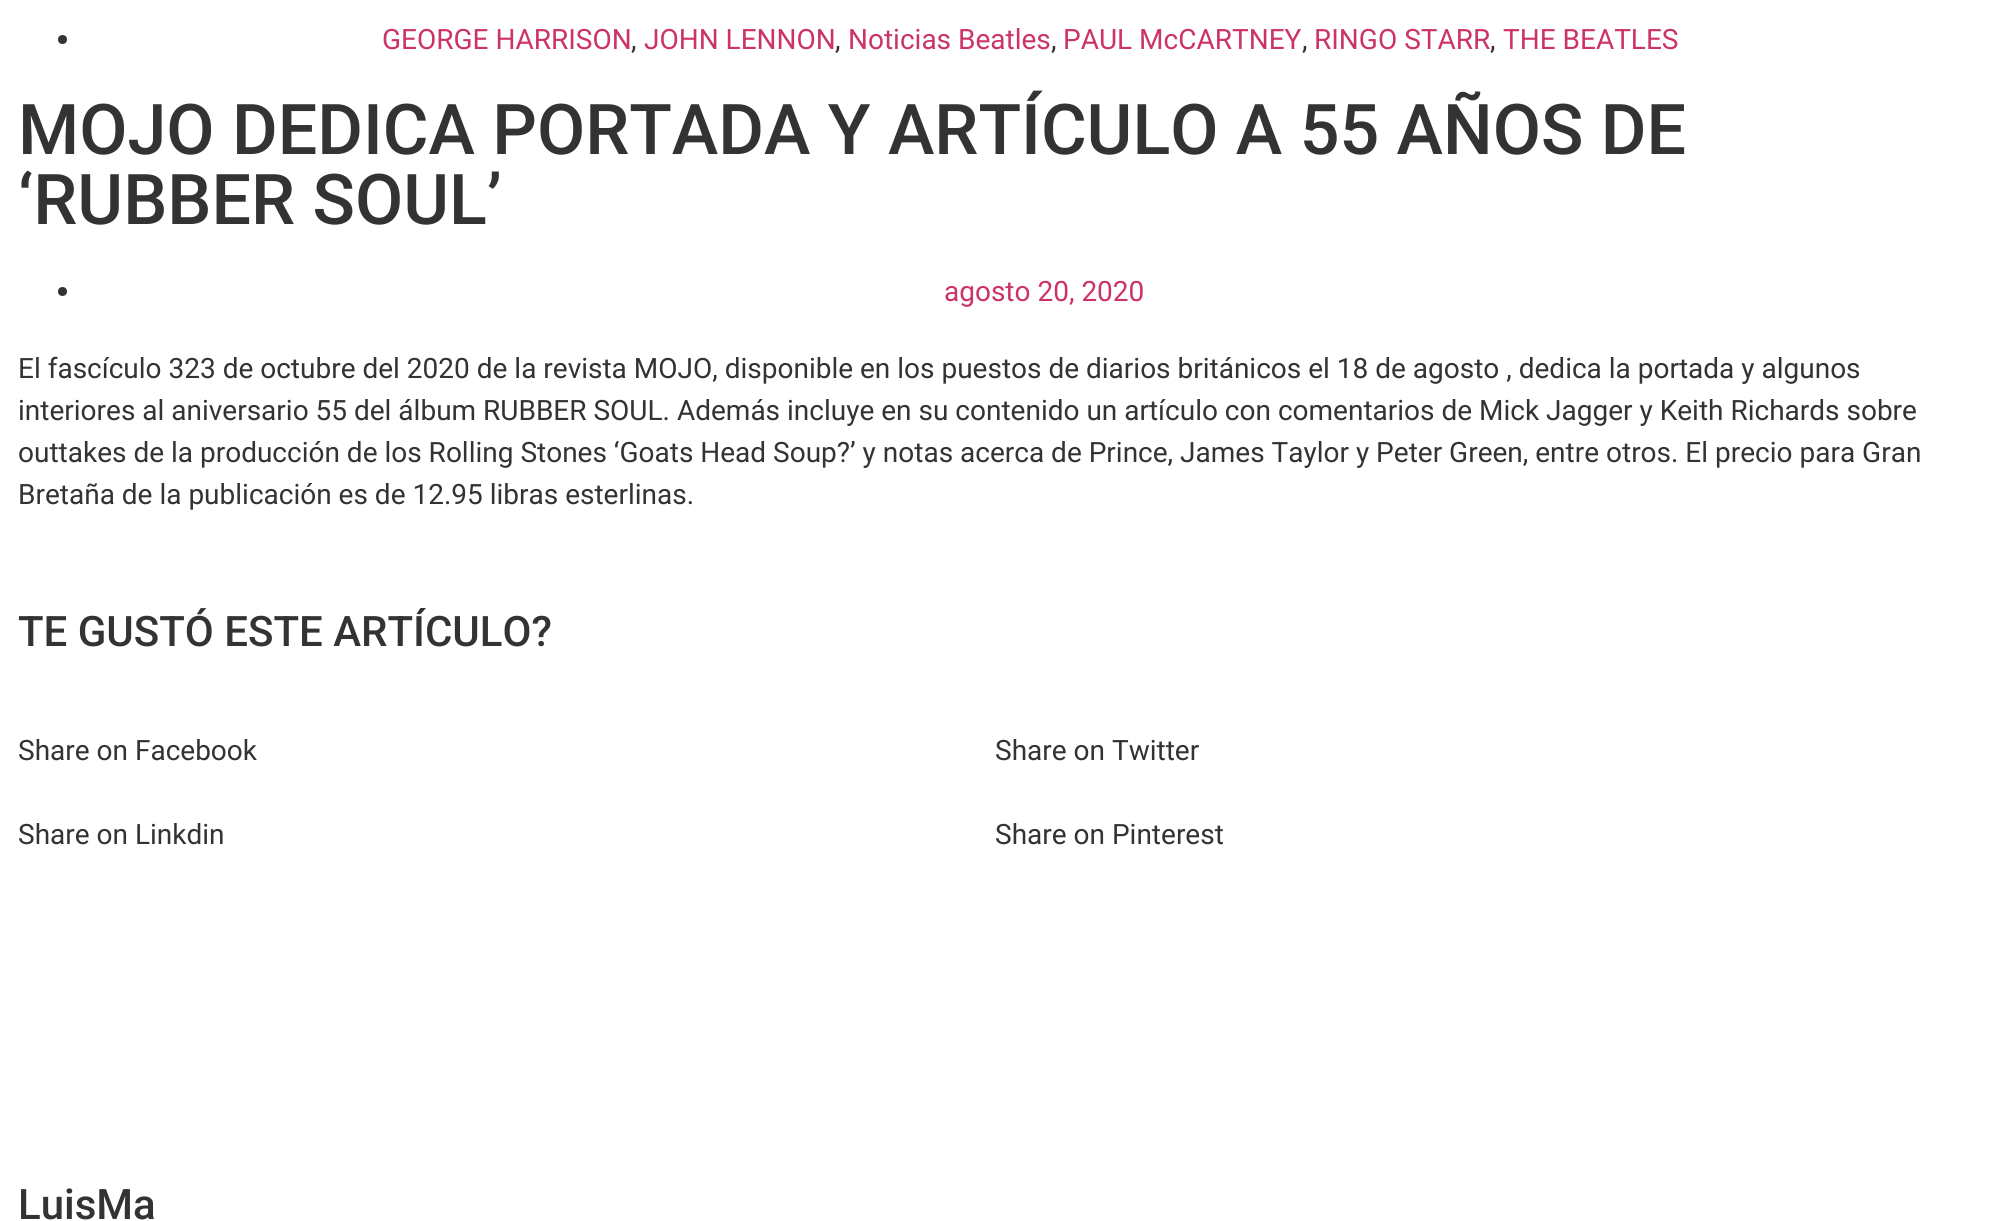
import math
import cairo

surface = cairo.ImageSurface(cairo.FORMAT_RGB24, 1989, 1221)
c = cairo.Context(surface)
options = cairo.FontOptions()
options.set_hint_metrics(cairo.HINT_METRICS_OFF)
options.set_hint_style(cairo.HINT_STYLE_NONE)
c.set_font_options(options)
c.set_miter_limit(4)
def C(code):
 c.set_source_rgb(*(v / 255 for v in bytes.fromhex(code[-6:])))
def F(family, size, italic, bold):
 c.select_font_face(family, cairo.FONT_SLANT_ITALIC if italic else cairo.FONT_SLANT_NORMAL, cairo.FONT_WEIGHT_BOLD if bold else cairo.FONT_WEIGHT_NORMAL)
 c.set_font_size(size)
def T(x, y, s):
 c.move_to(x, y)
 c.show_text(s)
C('ffffff')
c.paint()
C('333333')
c.arc(62.5,39.5,4.5,0,2 * math.pi)
c.fill()
F('Roboto',28,0,0)
C('cc3366')
T(382,49,'GEORGE HARRISON')
T(644,49,'JOHN LENNON')
T(848,49,'Noticias Beatles')
T(1063,49,'PAUL McCARTNEY')
T(1314,49,'RINGO STARR')
T(1503,49,'THE BEATLES')
C('333333')
T(631,49,',')
T(835,49,',')
T(1051,49,',')
T(1302,49,',')
T(1490,49,',')
F('Roboto Medium',70,0,0)
T(18,154,'MOJO DEDICA PORTADA Y ARTÍCULO A 55 AÑOS DE')
T(18,224,'‘RUBBER SOUL’')
c.new_path()
c.arc(62.5,291.5,4.5,0,2 * math.pi)
c.fill()
F('Roboto',28,0,0)
C('cc3366')
T(944,301,'agosto 20, 2020')
C('333333')
T(18,378,'El fascículo 323 de octubre del 2020 de la revista MOJO, disponible en los puestos de diarios británicos el 18 de agosto , dedica la portada y algunos')
T(18,420,'interiores al aniversario 55 del álbum RUBBER SOUL. Además incluye en su contenido un artículo con comentarios de Mick Jagger y Keith Richards sobre')
T(18,462,'outtakes de la producción de los Rolling Stones ‘Goats Head Soup?’ y notas acerca de Prince, James Taylor y Peter Green, entre otros. El precio para Gran')
T(18,504,'Bretaña de la publicación es de 12.95 libras esterlinas.')
F('Roboto Medium',42,0,0)
T(18,646,'TE GUSTÓ ESTE ARTÍCULO?')
F('Roboto',28,0,0)
T(18,760,'Share on Facebook')
T(995,760,'Share on Twitter')
T(18,844,'Share on Linkdin')
T(995,844,'Share on Pinterest')
F('Roboto Medium',42,0,0)
T(18,1219,'LuisMa')
surface.write_to_png('o.png')
